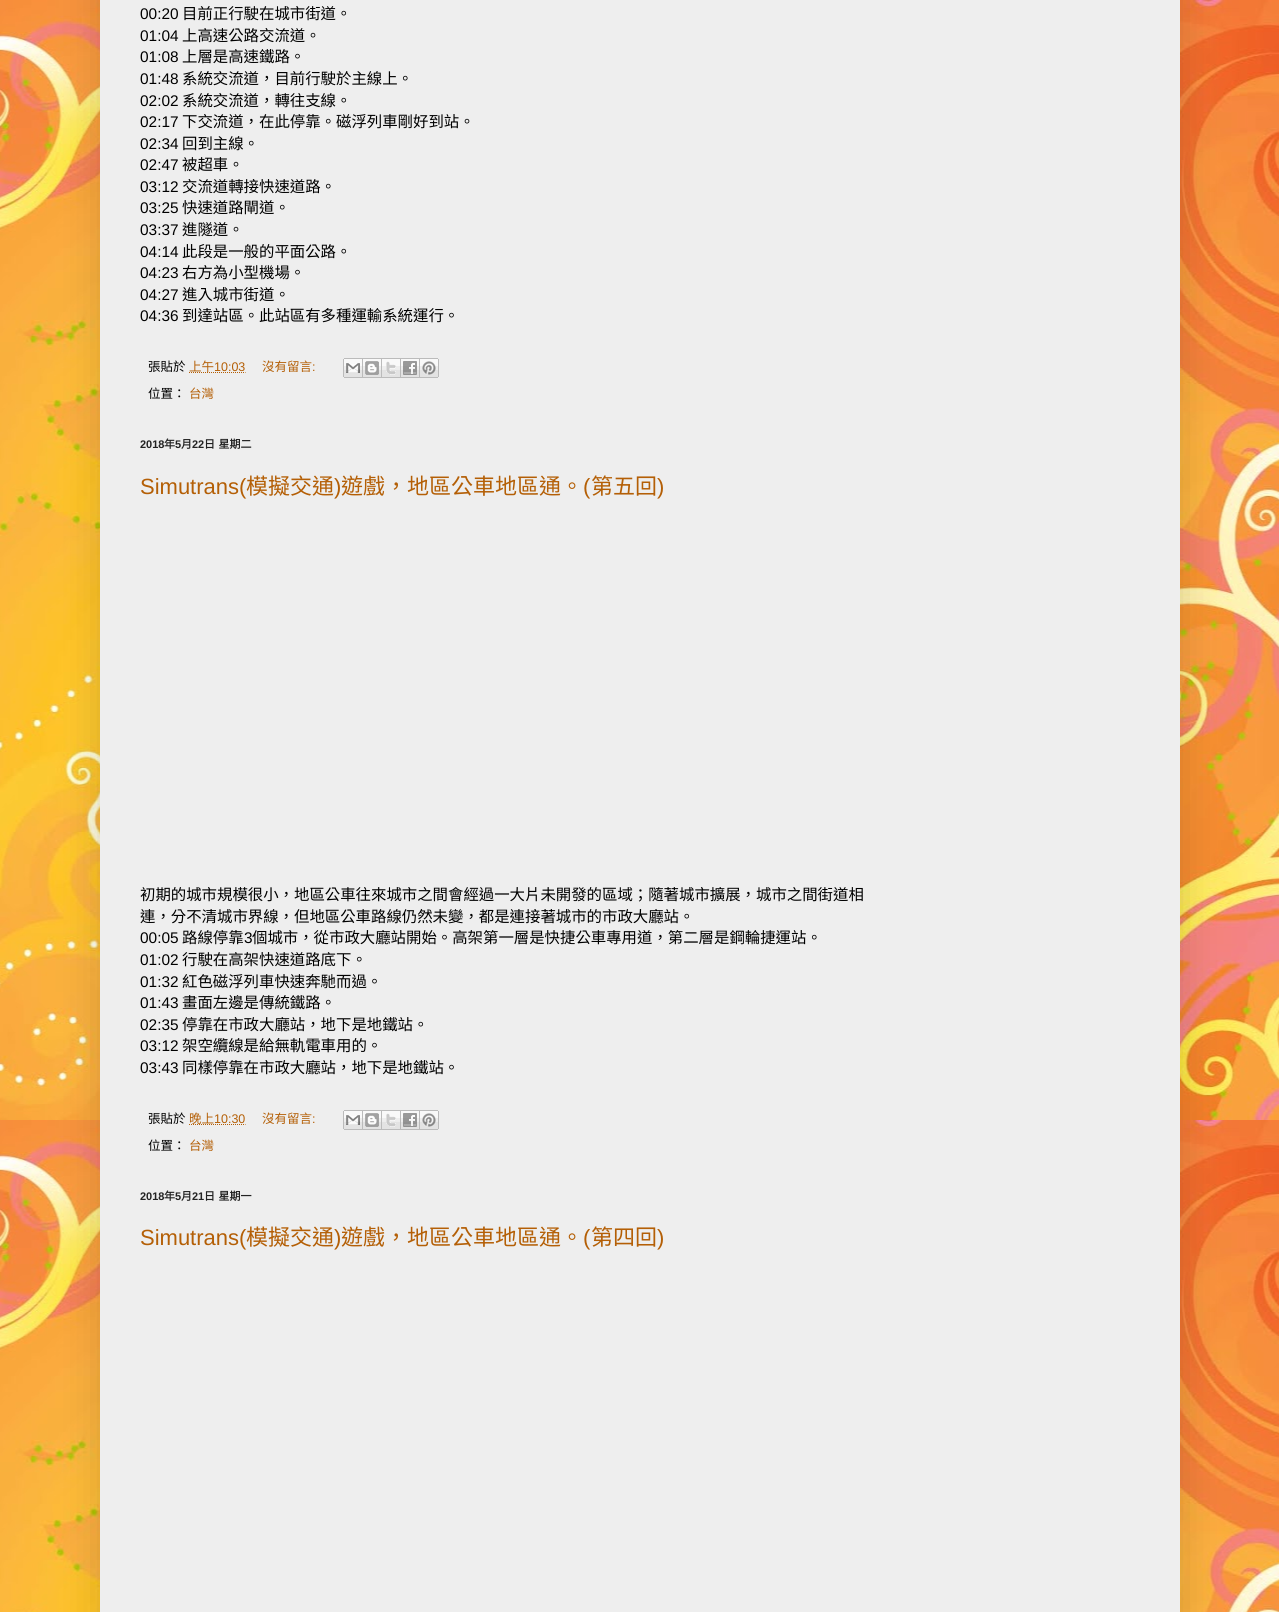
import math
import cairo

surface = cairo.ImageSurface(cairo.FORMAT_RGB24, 1279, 1612)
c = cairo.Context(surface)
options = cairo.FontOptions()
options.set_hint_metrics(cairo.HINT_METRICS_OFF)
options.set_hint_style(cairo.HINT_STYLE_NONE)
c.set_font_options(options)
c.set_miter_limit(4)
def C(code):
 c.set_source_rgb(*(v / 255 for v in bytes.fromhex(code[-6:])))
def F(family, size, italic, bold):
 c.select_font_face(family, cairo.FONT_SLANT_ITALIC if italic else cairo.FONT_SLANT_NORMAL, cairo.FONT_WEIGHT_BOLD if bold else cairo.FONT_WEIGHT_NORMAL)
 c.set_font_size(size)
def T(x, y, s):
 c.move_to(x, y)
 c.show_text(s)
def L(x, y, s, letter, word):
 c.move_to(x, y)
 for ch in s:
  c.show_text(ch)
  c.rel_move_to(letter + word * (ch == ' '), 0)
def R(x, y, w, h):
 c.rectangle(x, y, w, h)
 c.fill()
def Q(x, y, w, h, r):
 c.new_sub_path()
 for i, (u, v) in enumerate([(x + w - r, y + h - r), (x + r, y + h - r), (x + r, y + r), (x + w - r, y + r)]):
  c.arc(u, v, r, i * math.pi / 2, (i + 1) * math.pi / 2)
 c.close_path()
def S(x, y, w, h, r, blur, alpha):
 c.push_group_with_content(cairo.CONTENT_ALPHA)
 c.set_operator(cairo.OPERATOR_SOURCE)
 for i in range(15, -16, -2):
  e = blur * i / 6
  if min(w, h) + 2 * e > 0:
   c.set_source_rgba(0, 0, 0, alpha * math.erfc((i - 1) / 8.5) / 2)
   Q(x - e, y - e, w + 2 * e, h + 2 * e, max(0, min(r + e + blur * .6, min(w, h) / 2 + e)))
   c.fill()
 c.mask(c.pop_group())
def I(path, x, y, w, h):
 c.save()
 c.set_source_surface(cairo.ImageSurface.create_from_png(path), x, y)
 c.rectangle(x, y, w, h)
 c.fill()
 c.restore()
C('ffffff')
c.paint()
I('1.png',0,0,1279,1612)
C('000000')
S(100,-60,1080,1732,0,20,.15)
C('eeeeee')
R(100,0,1080,1612)
F('Liberation Sans',15.4,0,0)
C('000000')
T(140,19,'00:20')
F('Noto Sans CJK TC',15.4,0,0)
T(182,19,'目前正行駛在城市街道。')
F('Liberation Sans',15.4,0,0)
T(140,41,'01:04')
F('Noto Sans CJK TC',15.4,0,0)
T(182,41,'上高速公路交流道。')
F('Liberation Sans',15.4,0,0)
T(140,62,'01:08')
F('Noto Sans CJK TC',15.4,0,0)
T(182,62,'上層是高速鐵路。')
F('Liberation Sans',15.4,0,0)
T(140,84,'01:48')
F('Noto Sans CJK TC',15.4,0,0)
T(182,84,'系統交流道，目前行駛於主線上。')
F('Liberation Sans',15.4,0,0)
T(140,106,'02:02')
F('Noto Sans CJK TC',15.4,0,0)
T(182,106,'系統交流道，轉往支線。')
F('Liberation Sans',15.4,0,0)
T(140,127,'02:17')
F('Noto Sans CJK TC',15.4,0,0)
T(182,127,'下交流道，在此停靠。磁浮列車剛好到站。')
F('Liberation Sans',15.4,0,0)
T(140,149,'02:34')
F('Noto Sans CJK TC',15.4,0,0)
T(182,149,'回到主線。')
F('Liberation Sans',15.4,0,0)
T(140,170,'02:47')
F('Noto Sans CJK TC',15.4,0,0)
T(182,170,'被超車。')
F('Liberation Sans',15.4,0,0)
T(140,192,'03:12')
F('Noto Sans CJK TC',15.4,0,0)
T(182,192,'交流道轉接快速道路。')
F('Liberation Sans',15.4,0,0)
T(140,213,'03:25')
F('Noto Sans CJK TC',15.4,0,0)
T(182,213,'快速道路閘道。')
F('Liberation Sans',15.4,0,0)
T(140,235,'03:37')
F('Noto Sans CJK TC',15.4,0,0)
T(182,235,'進隧道。')
F('Liberation Sans',15.4,0,0)
T(140,257,'04:14')
F('Noto Sans CJK TC',15.4,0,0)
T(182,257,'此段是一般的平面公路。')
F('Liberation Sans',15.4,0,0)
T(140,278,'04:23')
F('Noto Sans CJK TC',15.4,0,0)
T(182,278,'右方為小型機場。')
F('Liberation Sans',15.4,0,0)
T(140,300,'04:27')
F('Noto Sans CJK TC',15.4,0,0)
T(182,300,'進入城市街道。')
F('Liberation Sans',15.4,0,0)
T(140,321,'04:36')
F('Noto Sans CJK TC',15.4,0,0)
T(182,321,'到達站區。此站區有多種運輸系統運行。')
F('Noto Sans CJK TC',12.5,0,0)
T(148,371,'張貼於')
C('b45f06')
T(189,371,'上午')
F('Liberation Sans',12.5,0,0)
T(214,371,'10:03')
c.new_path()
c.move_to(189,372.5)
c.line_to(245.5,372.5)
c.set_line_width(1)
c.set_dash([1,1])
c.stroke()
F('Noto Sans CJK TC',12.5,0,0)
T(262,371,'沒有留言')
F('Liberation Sans',12.5,0,0)
T(312,371,':')
I('2.png',343,358,20,20)
I('3.png',363,358,19,20)
I('4.png',382,358,19,20)
I('5.png',401,358,19,20)
I('6.png',420,358,19,20)
F('Noto Sans CJK TC',12.5,0,0)
C('000000')
T(148,398,'位置：')
C('b45f06')
T(189,398,'台灣')
F('Liberation Sans',11,0,1)
C('222222')
T(140,448,'2018')
F('Noto Sans CJK TC',11,0,1)
T(164,448,'年')
F('Liberation Sans',11,0,1)
T(175,448,'5')
F('Noto Sans CJK TC',11,0,1)
T(181,448,'月')
F('Liberation Sans',11,0,1)
T(192,448,'22')
F('Noto Sans CJK TC',11,0,1)
L(204,448,'日 星期二',0,1)
F('Liberation Sans',22,0,0)
C('b45f06')
T(140,494,'Simutrans(')
F('Noto Sans CJK TC',22,0,0)
T(246,494,'模擬交通')
F('Liberation Sans',22,0,0)
T(334,494,')')
F('Noto Sans CJK TC',22,0,0)
T(341,494,'遊戲，地區公車地區通。')
F('Liberation Sans',22,0,0)
T(583,494,'(')
F('Noto Sans CJK TC',22,0,0)
T(591,494,'第五回')
F('Liberation Sans',22,0,0)
T(657,494,')')
F('Noto Sans CJK TC',15.4,0,0)
C('000000')
T(140,900,'初期的城市規模很小，地區公車往來城市之間會經過一大片未開發的區域；隨著城市擴展，城市之間街道相')
T(140,922,'連，分不清城市界線，但地區公車路線仍然未變，都是連接著城市的市政大廳站。')
F('Liberation Sans',15.4,0,0)
T(140,943,'00:05')
F('Noto Sans CJK TC',15.4,0,0)
T(182,943,'路線停靠')
F('Liberation Sans',15.4,0,0)
T(244,943,'3')
F('Noto Sans CJK TC',15.4,0,0)
T(252,943,'個城市，從市政大廳站開始。高架第一層是快捷公車專用道，第二層是鋼輪捷運站。')
F('Liberation Sans',15.4,0,0)
T(140,965,'01:02')
F('Noto Sans CJK TC',15.4,0,0)
T(182,965,'行駛在高架快速道路底下。')
F('Liberation Sans',15.4,0,0)
T(140,987,'01:32')
F('Noto Sans CJK TC',15.4,0,0)
T(182,987,'紅色磁浮列車快速奔馳而過。')
F('Liberation Sans',15.4,0,0)
T(140,1008,'01:43')
F('Noto Sans CJK TC',15.4,0,0)
T(182,1008,'畫面左邊是傳統鐵路。')
F('Liberation Sans',15.4,0,0)
T(140,1030,'02:35')
F('Noto Sans CJK TC',15.4,0,0)
T(182,1030,'停靠在市政大廳站，地下是地鐵站。')
F('Liberation Sans',15.4,0,0)
T(140,1051,'03:12')
F('Noto Sans CJK TC',15.4,0,0)
T(182,1051,'架空纜線是給無軌電車用的。')
F('Liberation Sans',15.4,0,0)
T(140,1073,'03:43')
F('Noto Sans CJK TC',15.4,0,0)
T(182,1073,'同樣停靠在市政大廳站，地下是地鐵站。')
F('Noto Sans CJK TC',12.5,0,0)
T(148,1123,'張貼於')
c.new_path()
c.move_to(189,1124.5)
c.line_to(245.5,1124.5)
C('b45f06')
c.stroke()
T(189,1123,'晚上')
F('Liberation Sans',12.5,0,0)
T(214,1123,'10:30')
F('Noto Sans CJK TC',12.5,0,0)
T(262,1123,'沒有留言')
F('Liberation Sans',12.5,0,0)
T(312,1123,':')
I('2.png',343,1110,20,20)
I('3.png',363,1110,19,20)
I('4.png',382,1110,19,20)
I('5.png',401,1110,19,20)
I('6.png',420,1110,19,20)
F('Noto Sans CJK TC',12.5,0,0)
C('000000')
T(148,1150,'位置：')
C('b45f06')
T(189,1150,'台灣')
F('Liberation Sans',11,0,1)
C('222222')
T(140,1200,'2018')
F('Noto Sans CJK TC',11,0,1)
T(164,1200,'年')
F('Liberation Sans',11,0,1)
T(175,1200,'5')
F('Noto Sans CJK TC',11,0,1)
T(181,1200,'月')
F('Liberation Sans',11,0,1)
T(192,1200,'21')
F('Noto Sans CJK TC',11,0,1)
L(204,1200,'日 星期一',0,1)
F('Liberation Sans',22,0,0)
C('b45f06')
T(140,1245,'Simutrans(')
F('Noto Sans CJK TC',22,0,0)
T(246,1245,'模擬交通')
F('Liberation Sans',22,0,0)
T(334,1245,')')
F('Noto Sans CJK TC',22,0,0)
T(341,1245,'遊戲，地區公車地區通。')
F('Liberation Sans',22,0,0)
T(583,1245,'(')
F('Noto Sans CJK TC',22,0,0)
T(591,1245,'第四回')
F('Liberation Sans',22,0,0)
T(657,1245,')')
surface.write_to_png('o.png')
